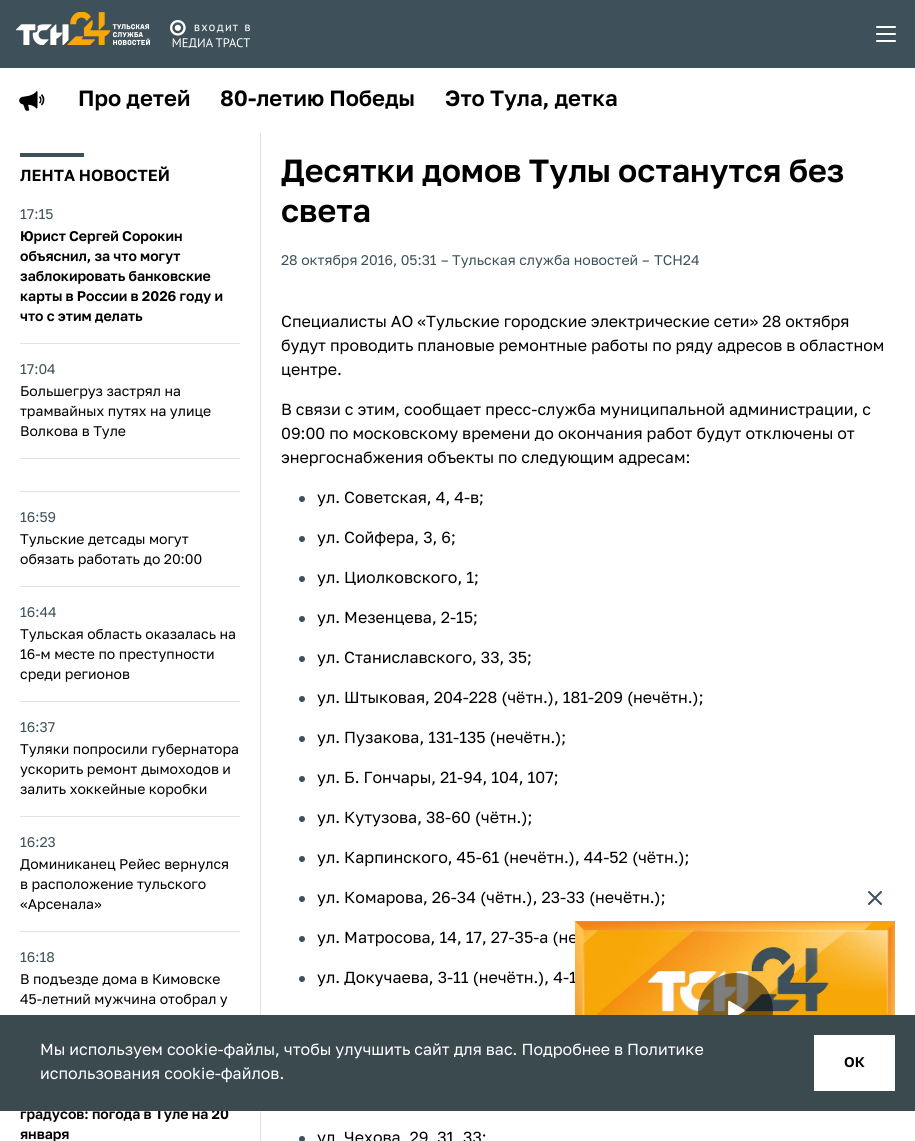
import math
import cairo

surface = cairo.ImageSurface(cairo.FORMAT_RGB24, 915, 1141)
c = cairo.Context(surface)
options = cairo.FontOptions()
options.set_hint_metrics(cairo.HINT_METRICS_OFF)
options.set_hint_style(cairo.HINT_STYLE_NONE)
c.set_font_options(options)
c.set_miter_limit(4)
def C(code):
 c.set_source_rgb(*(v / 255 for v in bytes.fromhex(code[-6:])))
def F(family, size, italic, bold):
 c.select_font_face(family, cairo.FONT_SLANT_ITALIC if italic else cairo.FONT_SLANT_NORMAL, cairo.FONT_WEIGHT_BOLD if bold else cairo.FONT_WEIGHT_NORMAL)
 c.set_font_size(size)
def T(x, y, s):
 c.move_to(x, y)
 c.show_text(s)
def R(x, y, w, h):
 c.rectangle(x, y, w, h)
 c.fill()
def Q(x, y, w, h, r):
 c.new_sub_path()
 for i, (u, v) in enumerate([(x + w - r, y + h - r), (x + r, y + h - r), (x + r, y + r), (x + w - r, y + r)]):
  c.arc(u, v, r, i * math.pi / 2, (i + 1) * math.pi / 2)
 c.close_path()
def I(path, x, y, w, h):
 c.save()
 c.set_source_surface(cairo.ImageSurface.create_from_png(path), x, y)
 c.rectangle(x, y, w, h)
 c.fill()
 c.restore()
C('ffffff')
c.paint()
C('3e5059')
R(0,0,915,68)
I('1.png',16,12,134,33)
I('2.png',170,20,80,28)
C('ffffff')
Q(876,26,20,2,1)
c.fill()
Q(876,33,20,2,1)
c.fill()
Q(876,40,20,2,1)
c.fill()
I('3.png',19,91,26,20)
F('Golos Text SemiBold',22,0,0)
C('000000')
T(78,106,'Про детей')
T(220,106,'80-летию Победы')
T(445,106,'Это Тула, детка')
C('3e5059')
R(20,153,64,4)
F('Golos Text SemiBold',16,0,0)
C('000000')
T(20,181,'ЛЕНТА НОВОСТЕЙ')
C('e2e2e2')
R(20,343,220,1)
F('Golos Text',14,0,0)
C('3e5059')
T(20,219,'17:15')
F('Golos Text SemiBold',14,0,0)
C('000000')
T(20,241,'Юрист Сергей Сорокин')
T(20,261,'объяснил, за что могут')
T(20,281,'заблокировать банковские')
T(20,301,'карты в России в 2026 году и')
T(20,321,'что с этим делать')
C('e2e2e2')
R(20,458,220,1)
F('Golos Text',14,0,0)
C('3e5059')
T(20,374,'17:04')
C('000000')
T(20,396,'Большегруз застрял на')
T(20,416,'трамвайных путях на улице')
T(20,436,'Волкова в Туле')
C('e2e2e2')
R(20,491,220,1)
R(20,586,220,1)
C('3e5059')
T(20,522,'16:59')
C('000000')
T(20,544,'Тульские детсады могут')
T(20,564,'обязать работать до 20:00')
C('e2e2e2')
R(20,701,220,1)
C('3e5059')
T(20,617,'16:44')
C('000000')
T(20,639,'Тульская область оказалась на')
T(20,659,'16-м месте по преступности')
T(20,679,'среди регионов')
C('e2e2e2')
R(20,816,220,1)
C('3e5059')
T(20,732,'16:37')
C('000000')
T(20,754,'Туляки попросили губернатора')
T(20,774,'ускорить ремонт дымоходов и')
T(20,794,'залить хоккейные коробки')
C('e2e2e2')
R(20,931,220,1)
C('3e5059')
T(20,847,'16:23')
C('000000')
T(20,869,'Доминиканец Рейес вернулся')
T(20,889,'в расположение тульского')
T(20,909,'«Арсенала»')
C('3e5059')
T(20,962,'16:18')
C('000000')
T(20,984,'В подъезде дома в Кимовске')
T(20,1004,'45-летний мужчина отобрал у')
F('Golos Text SemiBold',14,0,0)
T(20,1119,'градусов: погода в Туле на 20')
T(20,1139,'января')
C('e2e2e2')
R(260,133,1,1008)
F('Golos Text SemiBold',32,0,0)
C('000000')
T(281,182,'Десятки домов Тулы останутся без')
T(281,222,'света')
F('Golos Text',14,0,0)
C('3e5059')
T(281,265,'28 октября 2016, 05:31')
T(441,265,'–')
T(452,265,'Тульская служба новостей')
T(642,265,'–')
T(654,265,'ТСН24')
F('Golos Text',16,0,0)
C('000000')
T(281,327,'Специалисты АО «Тульские городские электрические сети» 28 октября')
T(281,351,'будут проводить плановые ремонтные работы по ряду адресов в областном')
T(281,375,'центре.')
T(281,415,'В связи с этим, сообщает пресс-служба муниципальной администрации, с')
T(281,439,'09:00 по московскому времени до окончания работ будут отключены от')
T(281,463,'энергоснабжения объекты по следующим адресам:')
C('3e5059')
c.new_path()
c.arc(302,499,3,0,2 * math.pi)
c.fill()
C('000000')
T(317,503,'ул. Советская, 4, 4-в;')
C('3e5059')
c.new_path()
c.arc(302,539,3,0,2 * math.pi)
c.fill()
C('000000')
T(317,543,'ул. Сойфера, 3, 6;')
C('3e5059')
c.new_path()
c.arc(302,579,3,0,2 * math.pi)
c.fill()
C('000000')
T(317,583,'ул. Циолковского, 1;')
C('3e5059')
c.new_path()
c.arc(302,619,3,0,2 * math.pi)
c.fill()
C('000000')
T(317,623,'ул. Мезенцева, 2-15;')
C('3e5059')
c.new_path()
c.arc(302,659,3,0,2 * math.pi)
c.fill()
C('000000')
T(317,663,'ул. Станиславского, 33, 35;')
C('3e5059')
c.new_path()
c.arc(302,699,3,0,2 * math.pi)
c.fill()
C('000000')
T(317,703,'ул. Штыковая, 204-228 (чётн.), 181-209 (нечётн.);')
C('3e5059')
c.new_path()
c.arc(302,739,3,0,2 * math.pi)
c.fill()
C('000000')
T(317,743,'ул. Пузакова, 131-135 (нечётн.);')
C('3e5059')
c.new_path()
c.arc(302,779,3,0,2 * math.pi)
c.fill()
C('000000')
T(317,783,'ул. Б. Гончары, 21-94, 104, 107;')
C('3e5059')
c.new_path()
c.arc(302,819,3,0,2 * math.pi)
c.fill()
C('000000')
T(317,823,'ул. Кутузова, 38-60 (чётн.);')
C('3e5059')
c.new_path()
c.arc(302,859,3,0,2 * math.pi)
c.fill()
C('000000')
T(317,863,'ул. Карпинского, 45-61 (нечётн.), 44-52 (чётн.);')
C('3e5059')
c.new_path()
c.arc(302,899,3,0,2 * math.pi)
c.fill()
C('000000')
T(317,903,'ул. Комарова, 26-34 (чётн.), 23-33 (нечётн.);')
C('3e5059')
c.new_path()
c.arc(302,939,3,0,2 * math.pi)
c.fill()
C('000000')
T(317,943,'ул. Матросова, 14, 17, 27-35-а (не')
C('3e5059')
c.new_path()
c.arc(302,979,3,0,2 * math.pi)
c.fill()
C('000000')
T(317,983,'ул. Докучаева, 3-11 (нечётн.), 4-1')
C('3e5059')
c.new_path()
c.arc(302,1139,3,0,2 * math.pi)
c.fill()
C('000000')
T(317,1143,'ул. Чехова, 29, 31, 33;')
I('4.png',868,891,14,14)
I('5.png',575,921,320,94)
c.set_source_rgba(0,0,0,0.5)
c.arc(735.5,1010.5,37.5,0,2 * math.pi)
c.fill()
I('6.png',728,1000,17,15)
C('3b4a4f')
R(0,1015,915,96)
C('ffffff')
T(40,1055,'Мы используем cookie-файлы, чтобы улучшить сайт для вас. Подробнее в Политике')
T(40,1079,'использования cookie-файлов.')
R(814,1035,81,56)
F('Golos Text SemiBold',14,0,0)
C('000000')
T(844,1067,'ОК')
surface.write_to_png('o.png')
